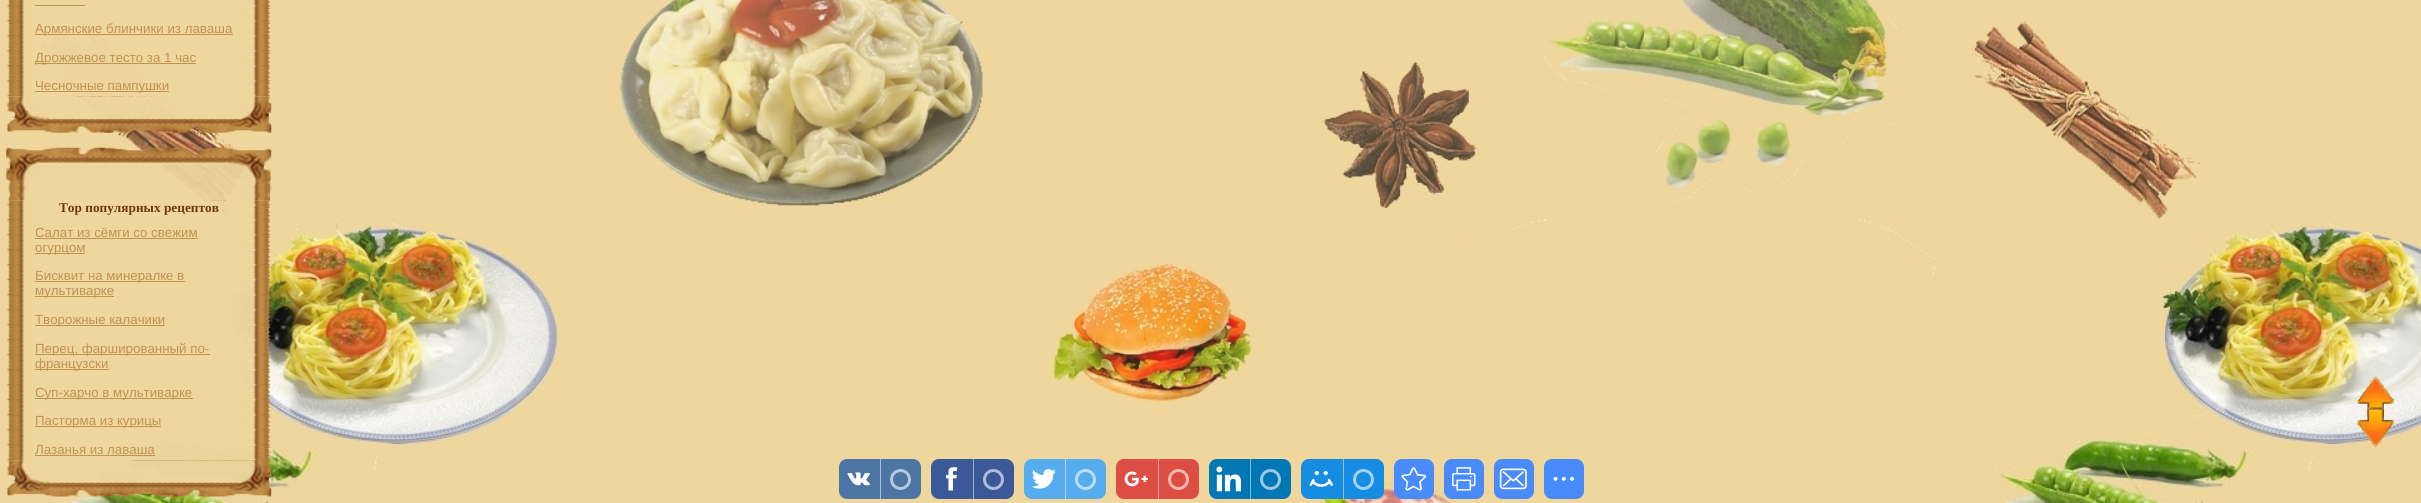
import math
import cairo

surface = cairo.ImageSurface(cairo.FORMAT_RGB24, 2421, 503)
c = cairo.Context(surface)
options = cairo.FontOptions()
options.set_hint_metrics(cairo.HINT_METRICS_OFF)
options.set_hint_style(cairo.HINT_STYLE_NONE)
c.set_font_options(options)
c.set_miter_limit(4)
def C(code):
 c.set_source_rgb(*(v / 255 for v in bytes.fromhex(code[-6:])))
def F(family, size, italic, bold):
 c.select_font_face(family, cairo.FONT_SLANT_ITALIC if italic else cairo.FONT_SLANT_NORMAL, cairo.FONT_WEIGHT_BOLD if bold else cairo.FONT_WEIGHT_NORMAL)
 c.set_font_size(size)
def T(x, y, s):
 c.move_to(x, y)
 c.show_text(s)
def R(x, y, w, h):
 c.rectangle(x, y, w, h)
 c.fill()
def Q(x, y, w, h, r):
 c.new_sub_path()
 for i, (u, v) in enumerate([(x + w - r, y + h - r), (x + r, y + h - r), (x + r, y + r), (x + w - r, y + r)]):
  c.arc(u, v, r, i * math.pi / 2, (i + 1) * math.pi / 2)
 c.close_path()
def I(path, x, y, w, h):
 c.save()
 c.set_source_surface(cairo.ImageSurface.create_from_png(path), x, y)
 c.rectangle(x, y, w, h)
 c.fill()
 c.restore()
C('ffffff')
c.paint()
I('1.png',0,0,2421,503)
I('2.png',7,0,264,97)
C('c19355')
R(35,5,50,1)
R(35,34,198,1)
F('Liberation Sans',13.3,0,0)
T(35,33,'Армянские блинчики из лаваша')
R(35,63,161,1)
T(35,62,'Дрожжевое тесто за 1 час')
R(35,91,134,1)
T(35,90,'Чесночные пампушки')
I('3.png',7,96,265,37)
I('4.png',6,147,266,54)
I('5.png',7,200,264,261)
F('Liberation Serif',13.3,0,1)
C('6d390d')
T(59,212,'Top популярных рецептов')
F('Liberation Sans',13.3,0,0)
C('c19355')
T(35,237,'Салат из сёмги со свежим')
R(35,238,163,1)
R(35,253,50,1)
T(35,252,'огурцом')
R(35,281,150,1)
T(35,280,'Бисквит на минералке в')
R(35,296,79,1)
T(35,295,'мультиварке')
R(35,325,130,1)
T(35,324,'Творожные калачики')
R(35,354,175,1)
T(35,353,'Перец, фаршированный по-')
R(35,369,74,1)
T(35,368,'французски')
R(35,398,158,1)
T(35,397,'Суп-харчо в мультиварке')
R(35,426,126,1)
T(35,425,'Пасторма из курицы')
T(35,454,'Лазанья из лаваша')
R(35,455,120,1)
I('6.png',7,460,265,37)
I('7.png',2357,375,37,42)
I('8.png',2357,407,37,42)
C('4d75a3')
Q(839,459,82,40,8)
c.fill()
I('9.png',847,472,23,14)
C('a6bad1')
R(880,459,1,40)
c.arc(900.5,479.5,9,0,2 * math.pi)
C('b8c8da')
c.set_line_width(3)
c.stroke()
C('3b5998')
Q(931,459,83,40,8)
c.fill()
I('10.png',946,467,12,24)
C('9daccc')
R(973,459,1,40)
c.arc(993.5,479.5,9,0,2 * math.pi)
C('b1bdd6')
c.stroke()
C('55acee')
Q(1024,459,82,40,8)
c.fill()
I('11.png',1032,469,24,20)
C('aad6f7')
R(1065,459,1,40)
c.arc(1085.5,479.5,9,0,2 * math.pi)
C('bbdef8')
c.stroke()
C('dc4e41')
Q(1116,459,83,40,8)
c.fill()
I('12.png',1124,471,24,16)
C('eea7a0')
R(1158,459,1,40)
c.arc(1178.5,479.5,9,0,2 * math.pi)
C('f1b8b3')
c.stroke()
C('0077b5')
Q(1209,459,82,40,8)
c.fill()
I('13.png',1216,466,25,26)
C('80bbda')
R(1250,459,1,40)
c.arc(1270.5,479.5,9,0,2 * math.pi)
C('99c9e1')
c.stroke()
C('168de2')
Q(1301,459,83,40,8)
c.fill()
I('14.png',1309,471,24,16)
C('8bc6f1')
R(1343,459,1,40)
c.arc(1363.5,479.5,9,0,2 * math.pi)
C('a2d1f3')
c.stroke()
C('498bfa')
Q(1394,459,40,40,8)
c.fill()
I('15.png',1401,467,25,24)
Q(1444,459,40,40,8)
c.fill()
I('16.png',1452,467,24,24)
Q(1494,459,40,40,8)
c.fill()
I('17.png',1499,468,28,22)
Q(1544,459,40,40,8)
c.fill()
I('18.png',1553,476,21,5)
surface.write_to_png('o.png')
